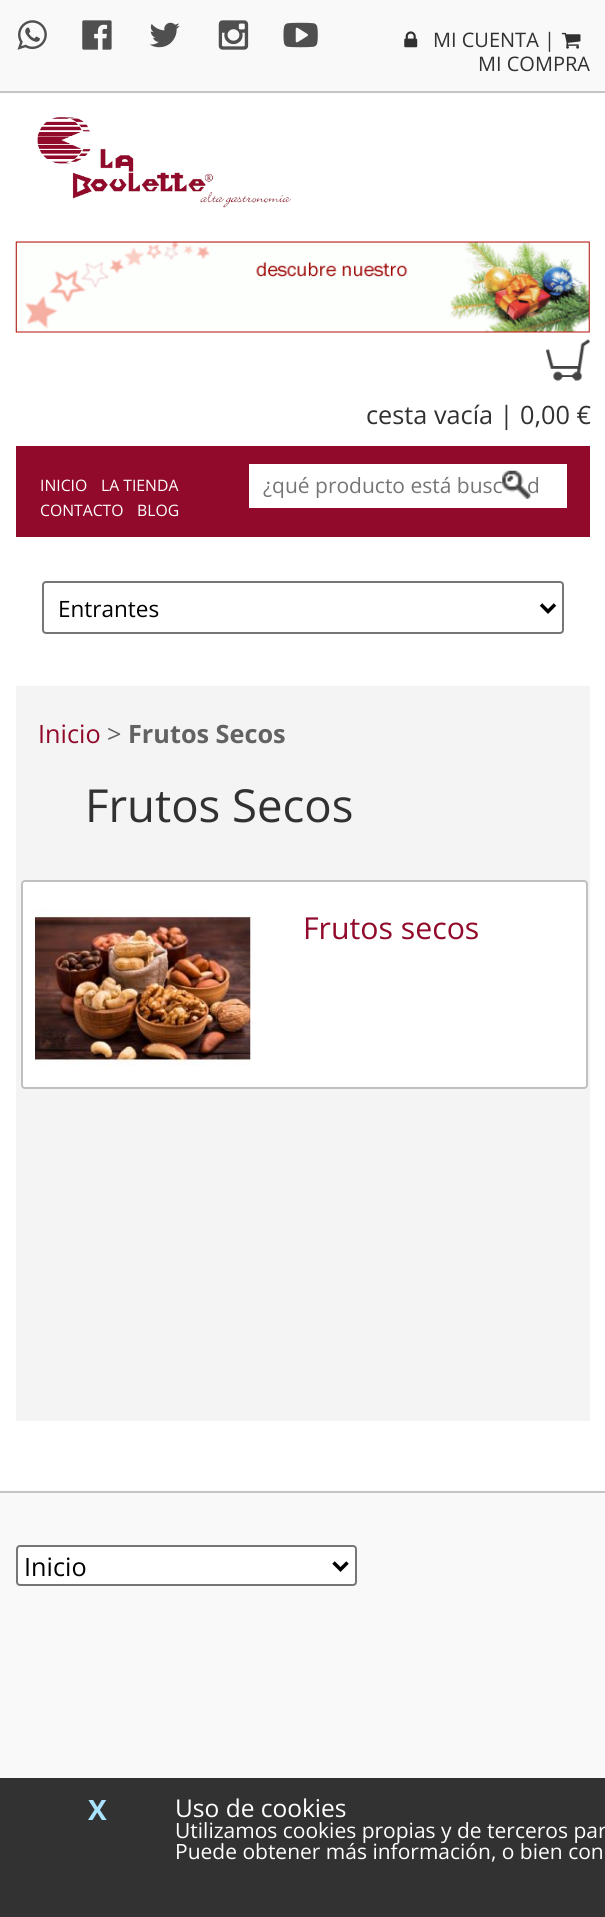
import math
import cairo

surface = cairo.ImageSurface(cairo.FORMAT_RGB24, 605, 1917)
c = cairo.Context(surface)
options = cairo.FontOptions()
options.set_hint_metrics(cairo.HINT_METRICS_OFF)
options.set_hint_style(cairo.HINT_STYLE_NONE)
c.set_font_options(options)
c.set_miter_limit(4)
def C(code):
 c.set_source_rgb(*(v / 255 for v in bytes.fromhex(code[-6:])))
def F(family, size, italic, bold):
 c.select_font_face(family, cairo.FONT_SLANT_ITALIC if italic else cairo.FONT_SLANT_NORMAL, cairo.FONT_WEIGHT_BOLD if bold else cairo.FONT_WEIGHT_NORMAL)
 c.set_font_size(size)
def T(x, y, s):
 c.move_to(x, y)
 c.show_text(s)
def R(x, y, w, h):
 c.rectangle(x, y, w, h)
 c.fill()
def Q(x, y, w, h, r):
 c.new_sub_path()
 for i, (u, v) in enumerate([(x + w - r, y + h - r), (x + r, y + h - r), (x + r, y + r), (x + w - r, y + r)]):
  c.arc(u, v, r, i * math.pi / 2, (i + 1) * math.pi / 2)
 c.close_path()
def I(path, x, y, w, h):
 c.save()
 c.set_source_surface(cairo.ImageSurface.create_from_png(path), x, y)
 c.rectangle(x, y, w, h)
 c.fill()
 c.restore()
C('f9f9f9')
c.paint()
C('c5c5c5')
R(0,91,605,2)
I('1.png',17,20,30,30)
I('2.png',82,20,30,30)
I('3.png',149,22,31,26)
I('4.png',218,20,31,30)
I('5.png',283,22,35,26)
I('6.png',404,31,14,17)
F('Open Sans',20,0,0)
C('313131')
T(433,47,'MI CUENTA |')
I('7.png',561,32,20,17)
T(478,71,'MI COMPRA')
C('ffffff')
R(0,93,605,1398)
I('8.png',37,117,254,91)
I('9.png',15,241,575,92)
I('10.png',546,339,44,42)
F('Open Sans',25.25,0,0)
C('313131')
T(366,424,'cesta vacía | 0,00 €')
C('910a2b')
R(16,446,574,91)
F('Open Sans',15.75,0,0)
C('ffffff')
T(40,491,'INICIO')
T(101,491,'LA TIENDA')
T(40,516,'CONTACTO')
T(137,516,'BLOG')
R(249,464,318,44)
F('Open Sans',21,0,0)
C('757575')
T(527,493,'d')
I('11.png',502,470,29,29)
T(263,493,'¿qué producto está busc')
Q(43,582,520,51,3)
C('767676')
c.stroke()
c.new_path()
c.move_to(541,604.5)
c.line_to(548,611.5)
c.line_to(555,604.5)
C('000000')
c.set_line_width(3.5)
c.stroke()
F('Open Sans',22.5,0,0)
T(58,617,'Entrantes')
C('f4f4f4')
R(16,686,574,735)
F('Open Sans',25.25,0,0)
C('910a2b')
T(38,743,'Inicio')
C('626262')
T(107,743,'>')
F('Open Sans',25.25,0,1)
T(128,743,'Frutos Secos')
F('Open Sans',45.5,0,0)
C('313131')
T(85,822,'Frutos Secos')
C('ffffff')
Q(22,881,565,207,3)
c.fill_preserve()
C('c0c0c0')
c.set_line_width(2)
c.stroke()
I('12.png',35,909,216,157)
F('Open Sans',30.25,0,0)
C('910a2b')
T(303,939,'Frutos secos')
C('c5c5c5')
R(0,1491,605,2)
C('ffffff')
Q(17,1546,339,39,3)
c.fill_preserve()
C('767676')
c.stroke()
c.new_path()
c.move_to(333.5,1562.5)
c.line_to(340.5,1569.5)
c.line_to(347.5,1562.5)
C('000000')
c.set_line_width(3.5)
c.stroke()
F('Open Sans',25.25,0,0)
T(24,1576,'Inicio')
C('323232')
R(0,1778,605,139)
F('Open Sans',28,0,1)
C('aae3ff')
T(88,1820,'X')
F('Open Sans',24.5,0,0)
C('ffffff')
T(175,1817,'Uso de cookies')
F('Open Sans',21,0,0)
T(175,1838,'Utilizamos cookies propias y de terceros par')
T(175,1859,'Puede obtener más información, o bien con')
surface.write_to_png('o.png')
